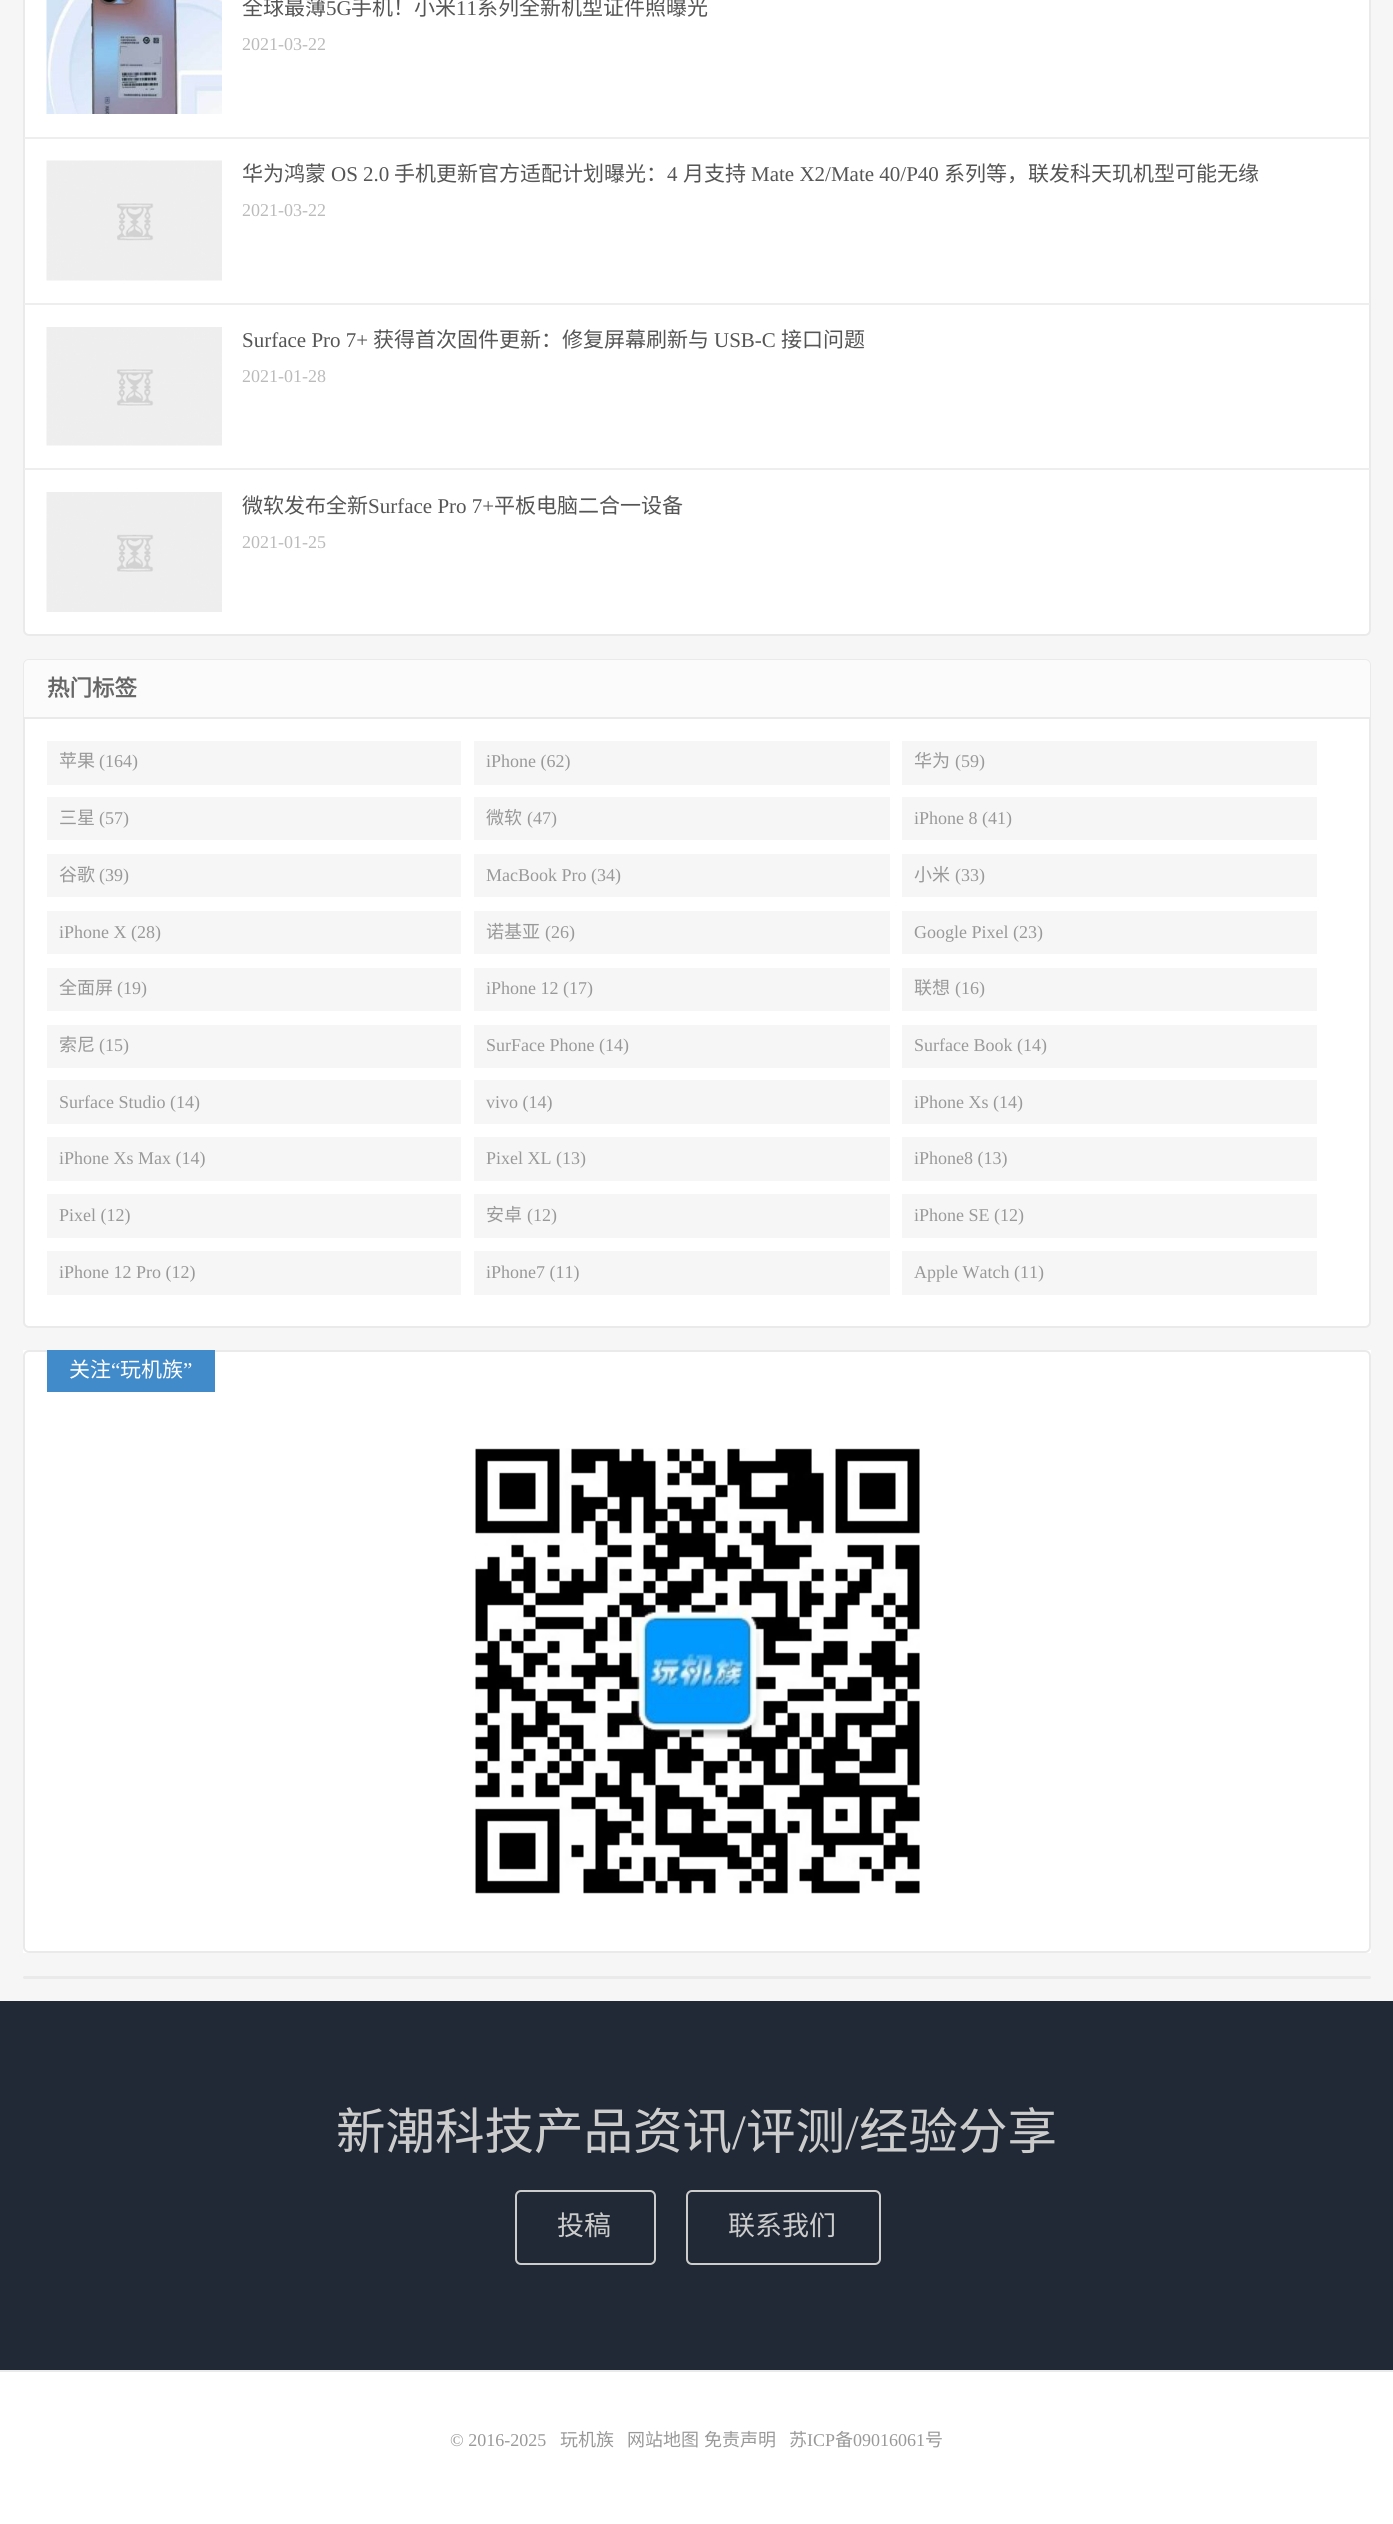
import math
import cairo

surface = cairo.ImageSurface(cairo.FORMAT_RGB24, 1393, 2524)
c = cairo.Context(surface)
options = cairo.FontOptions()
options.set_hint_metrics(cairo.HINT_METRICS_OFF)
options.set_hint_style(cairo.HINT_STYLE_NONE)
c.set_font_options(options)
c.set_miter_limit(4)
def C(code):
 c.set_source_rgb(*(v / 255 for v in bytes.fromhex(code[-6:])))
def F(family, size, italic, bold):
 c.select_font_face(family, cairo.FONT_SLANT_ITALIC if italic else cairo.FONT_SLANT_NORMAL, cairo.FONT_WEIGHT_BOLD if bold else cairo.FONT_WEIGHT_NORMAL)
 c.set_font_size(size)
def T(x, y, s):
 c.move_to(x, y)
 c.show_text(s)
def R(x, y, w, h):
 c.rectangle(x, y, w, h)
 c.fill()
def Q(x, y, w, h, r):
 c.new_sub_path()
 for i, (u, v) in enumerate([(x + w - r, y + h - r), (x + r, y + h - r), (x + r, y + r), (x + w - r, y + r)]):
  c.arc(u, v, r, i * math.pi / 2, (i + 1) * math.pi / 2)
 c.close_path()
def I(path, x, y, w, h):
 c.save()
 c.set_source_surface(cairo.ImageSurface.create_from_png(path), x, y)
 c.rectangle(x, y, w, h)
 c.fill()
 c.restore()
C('f6f6f6')
c.paint()
C('ffffff')
Q(24,-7,1346,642,5)
c.fill_preserve()
C('eaeaea')
c.stroke()
C('eeeeee')
R(24,137,1346,2)
I('1.png',46,0,176,114)
F('Noto Sans CJK SC',21,0,0)
C('555555')
T(242,15,'全球最薄')
F('Liberation Serif',21,0,0)
T(326,15,'5G')
F('Noto Sans CJK SC',21,0,0)
T(351,15,'手机！小米')
F('Liberation Serif',21,0,0)
T(456,15,'11')
F('Noto Sans CJK SC',21,0,0)
T(477,15,'系列全新机型证件照曝光')
F('Liberation Serif',18,0,0)
C('bbbbbb')
T(242,50,'2021-03-22')
C('eeeeee')
R(24,303,1346,2)
I('2.png',46,160,176,121)
F('Noto Sans CJK SC',21,0,0)
C('555555')
T(242,181,'华为鸿蒙')
F('Liberation Serif',21,0,0)
T(331,181,'OS 2.0')
F('Noto Sans CJK SC',21,0,0)
T(394,181,'手机更新官方适配计划曝光：')
F('Liberation Serif',21,0,0)
T(667,181,'4')
F('Noto Sans CJK SC',21,0,0)
T(683,181,'月支持')
F('Liberation Serif',21,0,0)
T(751,181,'Mate X2/Mate 40/P40')
F('Noto Sans CJK SC',21,0,0)
T(944,181,'系列等，联发科天玑机型可能无缘')
F('Liberation Serif',18,0,0)
C('bbbbbb')
T(242,216,'2021-03-22')
C('eeeeee')
R(24,468,1346,2)
I('3.png',46,327,176,119)
F('Liberation Serif',21,0,0)
C('555555')
T(242,347,'Surface Pro 7+')
F('Noto Sans CJK SC',21,0,0)
T(373,347,'获得首次固件更新：修复屏幕刷新与')
F('Liberation Serif',21,0,0)
T(714,347,'USB-C')
F('Noto Sans CJK SC',21,0,0)
T(781,347,'接口问题')
F('Liberation Serif',18,0,0)
C('bbbbbb')
T(242,382,'2021-01-28')
I('4.png',46,492,176,120)
F('Noto Sans CJK SC',21,0,0)
C('555555')
T(242,513,'微软发布全新')
F('Liberation Serif',21,0,0)
T(368,513,'Surface Pro 7+')
F('Noto Sans CJK SC',21,0,0)
T(494,513,'平板电脑二合一设备')
F('Liberation Serif',18,0,0)
C('bbbbbb')
T(242,548,'2021-01-25')
C('ffffff')
Q(24,660,1346,667,5)
c.fill_preserve()
C('eaeaea')
c.stroke()
C('fbfbfb')
c.new_path()
c.move_to(29,660)
c.line_to(1365,660)
c.curve_to(1368,660,1370,662,1370,665)
c.line_to(1370,719)
c.line_to(24,719)
c.line_to(24,665)
c.curve_to(24,662,26,660,29,660)
c.close_path()
c.fill()
C('eaeaea')
R(24,717,1346,2)
F('Noto Sans CJK SC',22.5,0,1)
C('666666')
T(47,696,'热门标签')
C('f6f6f6')
R(47,741,414,44)
F('Noto Sans CJK SC',18,0,0)
C('999999')
T(59,767,'苹果')
F('Liberation Serif',18,0,0)
T(99,767,'(164)')
C('f6f6f6')
R(474,741,416,44)
C('999999')
T(486,767,'iPhone (62)')
C('f6f6f6')
R(902,741,415,44)
F('Noto Sans CJK SC',18,0,0)
C('999999')
T(914,767,'华为')
F('Liberation Serif',18,0,0)
T(955,767,'(59)')
C('f6f6f6')
R(47,797,414,43)
F('Noto Sans CJK SC',18,0,0)
C('999999')
T(59,824,'三星')
F('Liberation Serif',18,0,0)
T(99,824,'(57)')
C('f6f6f6')
R(474,797,416,43)
F('Noto Sans CJK SC',18,0,0)
C('999999')
T(486,824,'微软')
F('Liberation Serif',18,0,0)
T(527,824,'(47)')
C('f6f6f6')
R(902,797,415,43)
C('999999')
T(914,824,'iPhone 8 (41)')
C('f6f6f6')
R(47,854,414,43)
F('Noto Sans CJK SC',18,0,0)
C('999999')
T(59,881,'谷歌')
F('Liberation Serif',18,0,0)
T(99,881,'(39)')
C('f6f6f6')
R(474,854,416,43)
C('999999')
T(486,881,'MacBook Pro (34)')
C('f6f6f6')
R(902,854,415,43)
F('Noto Sans CJK SC',18,0,0)
C('999999')
T(914,881,'小米')
F('Liberation Serif',18,0,0)
T(955,881,'(33)')
C('f6f6f6')
R(47,911,414,43)
C('999999')
T(59,938,'iPhone X (28)')
C('f6f6f6')
R(474,911,416,43)
F('Noto Sans CJK SC',18,0,0)
C('999999')
T(486,938,'诺基亚')
F('Liberation Serif',18,0,0)
T(545,938,'(26)')
C('f6f6f6')
R(902,911,415,43)
C('999999')
T(914,938,'Google Pixel (23)')
C('f6f6f6')
R(47,968,414,43)
F('Noto Sans CJK SC',18,0,0)
C('999999')
T(59,994,'全面屏')
F('Liberation Serif',18,0,0)
T(117,994,'(19)')
C('f6f6f6')
R(474,968,416,43)
C('999999')
T(486,994,'iPhone 12 (17)')
C('f6f6f6')
R(902,968,415,43)
F('Noto Sans CJK SC',18,0,0)
C('999999')
T(914,994,'联想')
F('Liberation Serif',18,0,0)
T(955,994,'(16)')
C('f6f6f6')
R(47,1025,414,43)
F('Noto Sans CJK SC',18,0,0)
C('999999')
T(59,1051,'索尼')
F('Liberation Serif',18,0,0)
T(99,1051,'(15)')
C('f6f6f6')
R(474,1025,416,43)
C('999999')
T(486,1051,'SurFace Phone (14)')
C('f6f6f6')
R(902,1025,415,43)
C('999999')
T(914,1051,'Surface Book (14)')
C('f6f6f6')
R(47,1080,414,44)
C('999999')
T(59,1108,'Surface Studio (14)')
C('f6f6f6')
R(474,1080,416,44)
C('999999')
T(486,1108,'vivo (14)')
C('f6f6f6')
R(902,1080,415,44)
C('999999')
T(914,1108,'iPhone Xs (14)')
C('f6f6f6')
R(47,1137,414,44)
C('999999')
T(59,1164,'iPhone Xs Max (14)')
C('f6f6f6')
R(474,1137,416,44)
C('999999')
T(486,1164,'Pixel XL (13)')
C('f6f6f6')
R(902,1137,415,44)
C('999999')
T(914,1164,'iPhone8 (13)')
C('f6f6f6')
R(47,1194,414,44)
C('999999')
T(59,1221,'Pixel (12)')
C('f6f6f6')
R(474,1194,416,44)
F('Noto Sans CJK SC',18,0,0)
C('999999')
T(486,1221,'安卓')
F('Liberation Serif',18,0,0)
T(527,1221,'(12)')
C('f6f6f6')
R(902,1194,415,44)
C('999999')
T(914,1221,'iPhone SE (12)')
C('f6f6f6')
R(47,1251,414,44)
C('999999')
T(59,1278,'iPhone 12 Pro (12)')
C('f6f6f6')
R(474,1251,416,44)
C('999999')
T(486,1278,'iPhone7 (11)')
C('f6f6f6')
R(902,1251,415,44)
C('999999')
T(914,1278,'Apple Watch (11)')
C('ffffff')
R(23,1350,1348,603)
Q(24,1351,1346,601,5)
C('eaeaea')
c.stroke()
C('428bca')
R(47,1350,168,42)
F('Noto Sans CJK SC',21,0,0)
C('ffffff')
T(69,1377,'关注')
F('Liberation Serif',21,0,0)
T(111,1377,'“')
F('Noto Sans CJK SC',21,0,0)
T(120,1377,'玩机族')
F('Liberation Serif',21,0,0)
T(183,1377,'”')
I('5.png',475,1448,445,446)
C('eaeaea')
Q(23,1976,1348,3,1.5)
c.fill()
C('202935')
R(0,2001,1393,369)
F('Noto Sans CJK SC',49.5,0,0)
C('cccccc')
T(336,2149,'新潮科技产品资讯')
F('Liberation Serif',49.5,0,0)
T(732,2149,'/')
F('Noto Sans CJK SC',49.5,0,0)
T(746,2149,'评测')
F('Liberation Serif',49.5,0,0)
T(845,2149,'/')
F('Noto Sans CJK SC',49.5,0,0)
T(859,2149,'经验分享')
Q(516,2191,139,73,5)
c.stroke()
F('Noto Sans CJK SC',27,0,0)
T(557,2235,'投稿')
Q(687,2191,193,73,5)
c.stroke()
T(728,2235,'联系我们')
C('ffffff')
R(0,2372,1393,152)
C('eaeaea')
R(0,2370,1393,2)
F('Liberation Serif',18,0,0)
C('999999')
T(450,2446,'© 2016-2025')
F('Noto Sans CJK SC',18,0,0)
T(560,2446,'玩机族')
T(627,2446,'网站地图')
T(704,2446,'免责声明')
T(789,2446,'苏')
F('Liberation Serif',18,0,0)
T(807,2446,'ICP')
F('Noto Sans CJK SC',18,0,0)
T(835,2446,'备')
F('Liberation Serif',18,0,0)
T(853,2446,'09016061')
F('Noto Sans CJK SC',18,0,0)
T(925,2446,'号')
surface.write_to_png('o.png')
